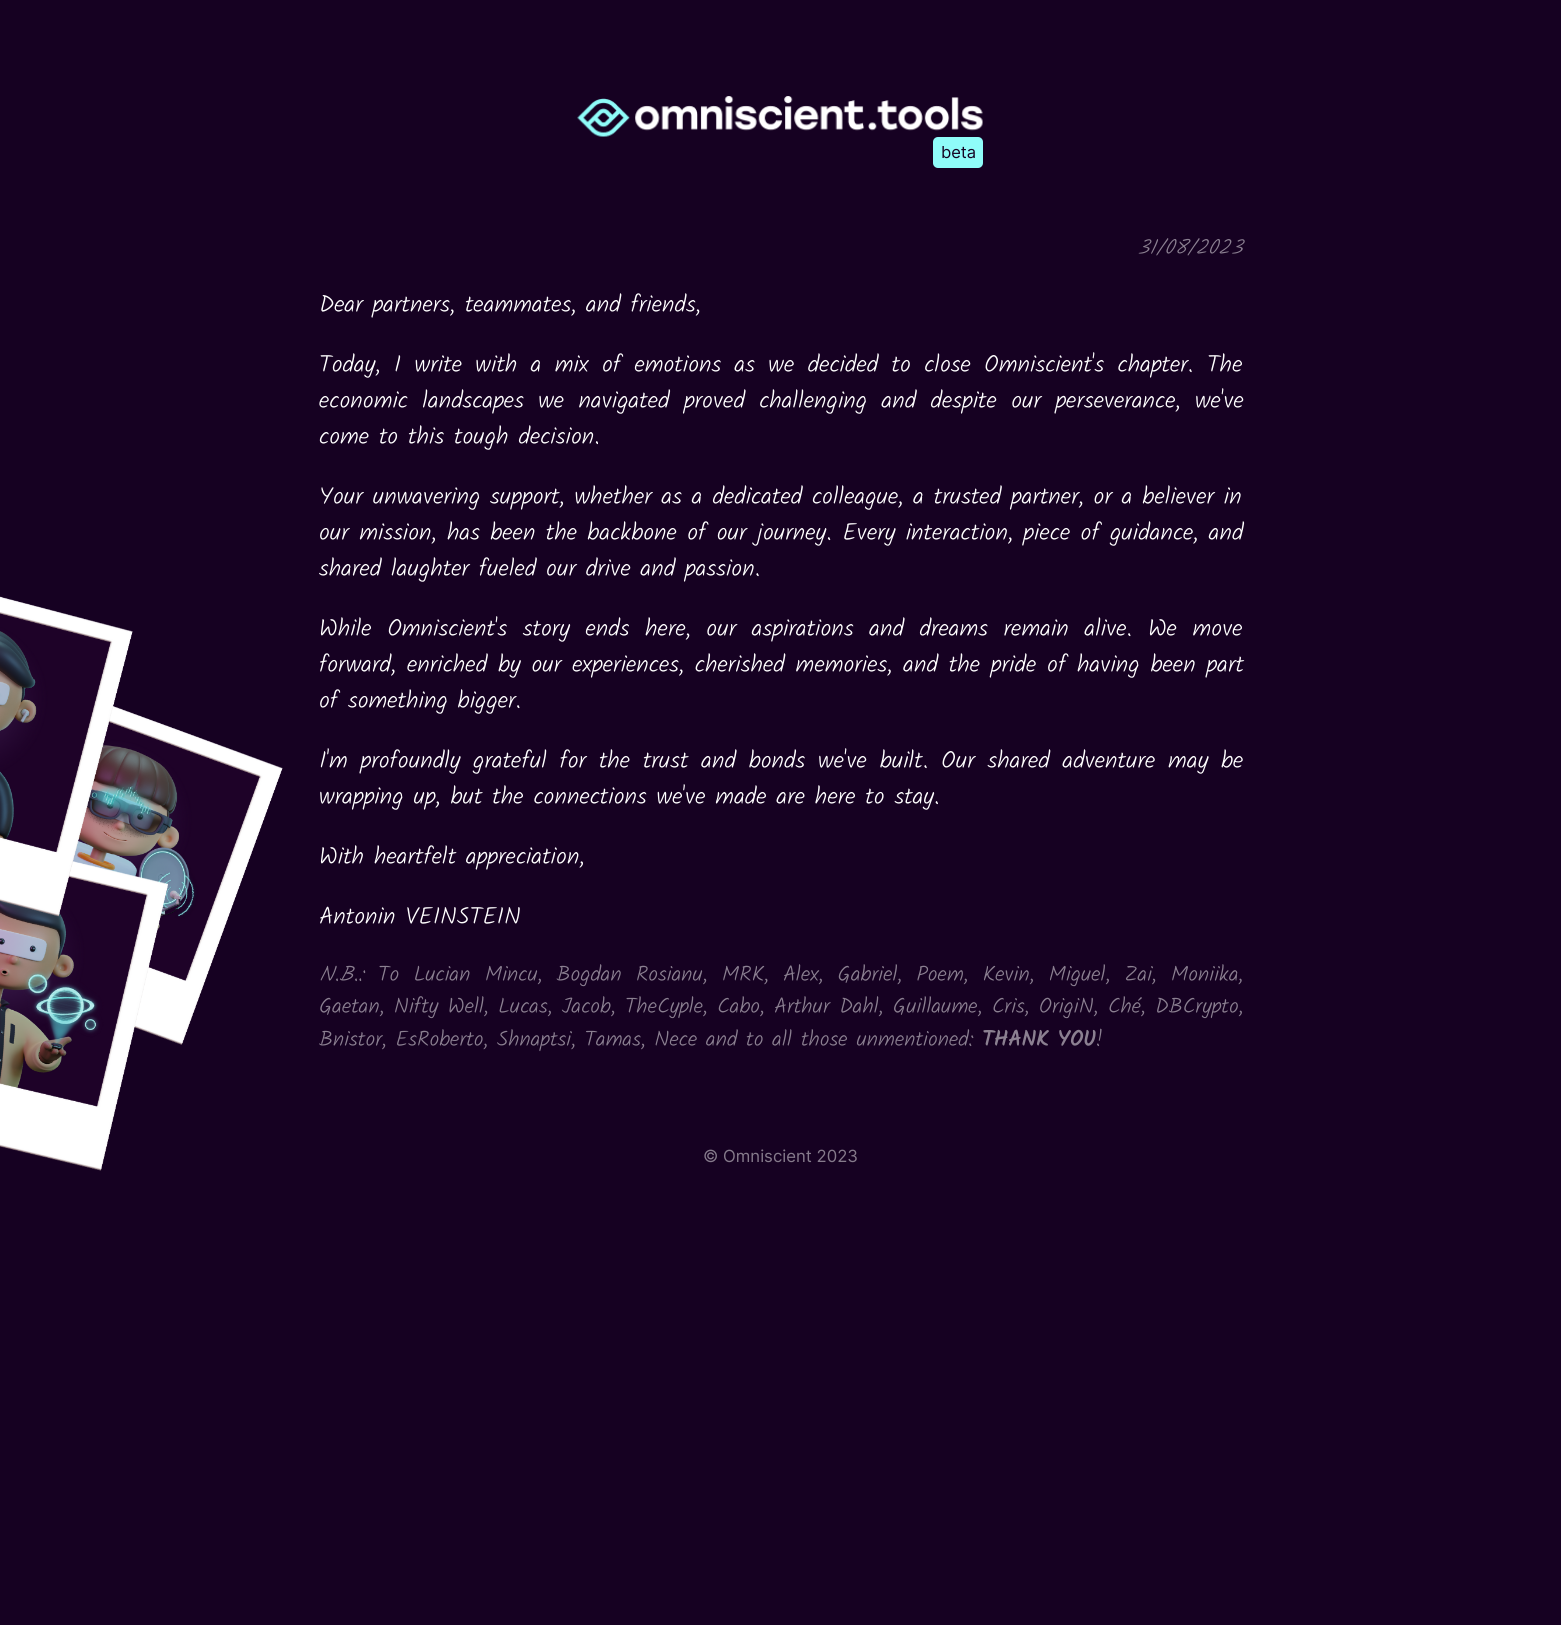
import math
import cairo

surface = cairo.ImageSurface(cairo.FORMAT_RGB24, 1561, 1625)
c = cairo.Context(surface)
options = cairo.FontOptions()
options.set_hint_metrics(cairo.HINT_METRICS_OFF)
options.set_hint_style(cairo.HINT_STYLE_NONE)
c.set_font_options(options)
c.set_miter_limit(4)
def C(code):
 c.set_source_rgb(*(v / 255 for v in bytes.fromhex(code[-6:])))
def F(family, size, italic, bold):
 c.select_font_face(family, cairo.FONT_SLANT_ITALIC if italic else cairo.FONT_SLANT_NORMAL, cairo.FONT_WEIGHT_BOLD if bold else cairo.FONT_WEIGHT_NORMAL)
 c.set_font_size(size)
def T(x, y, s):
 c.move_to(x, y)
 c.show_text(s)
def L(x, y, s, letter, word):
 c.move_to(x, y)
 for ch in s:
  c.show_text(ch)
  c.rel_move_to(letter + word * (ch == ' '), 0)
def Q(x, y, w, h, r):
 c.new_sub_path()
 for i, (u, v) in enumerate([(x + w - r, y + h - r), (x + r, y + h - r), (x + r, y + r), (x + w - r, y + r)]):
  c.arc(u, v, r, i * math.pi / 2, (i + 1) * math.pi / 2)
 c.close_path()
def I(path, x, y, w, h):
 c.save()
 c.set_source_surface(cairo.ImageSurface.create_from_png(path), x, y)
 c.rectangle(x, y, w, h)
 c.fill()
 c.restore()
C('160122')
c.paint()
I('1.png',577,96,406,41)
C('8ffcf9')
Q(933,137,50,31,5)
c.fill()
F('Inter',16.5,0,0)
C('160122')
T(941,158,'beta')
F('Kalam Light',21,1,0)
C('8b8091')
T(1137,254,'31/08/2023')
F('Kalam Light',24,0,0)
C('ffffff')
T(319,312,'Dear partners, teammates, and friends,')
L(319,372,'Today, I write with a mix of emotions as we decided to close Omniscient\'s chapter. The',0,3.5)
L(319,408,'economic landscapes we navigated proved challenging and despite our perseverance, we\'ve',0,4.5)
T(319,444,'come to this tough decision.')
T(319,504,'Your unwavering support, whether as a dedicated colleague, a trusted partner, or a believer in')
L(319,540,'our mission, has been the backbone of our journey. Every interaction, piece of guidance, and',0,.5)
T(319,576,'shared laughter fueled our drive and passion.')
I('2.png',0,596,283,575)
L(319,636,'While Omniscient\'s story ends here, our aspirations and dreams remain alive. We move',0,5.75)
L(319,672,'forward, enriched by our experiences, cherished memories, and the pride of having been part',0,1)
T(319,708,'of something bigger.')
L(319,768,'I\'m profoundly grateful for the trust and bonds we\'ve built. Our shared adventure may be',0,2.9)
T(319,804,'wrapping up, but the connections we\'ve made are here to stay.')
T(319,864,'With heartfelt appreciation,')
T(319,924,'Antonin VEINSTEIN')
F('Kalam Light',21.6,1,0)
C('8b8091')
T(319,981,'N.B.:')
F('Kalam Light',21.6,0,0)
L(378,981,'To Lucian Mincu, Bogdan Rosianu, MRK, Alex, Gabriel, Poem, Kevin, Miguel, Zai, Moniika,',0,5.4)
L(319,1013,'Gaetan, Nifty Well, Lucas, Jacob, TheCyple, Cabo, Arthur Dahl, Guillaume, Cris, OrigiN, Ché, DBCrypto,',0,.6)
T(319,1046,'Bnistor, EsRoberto, Shnaptsi, Tamas, Nece and to all those unmentioned:')
F('Kalam',21.6,0,1)
T(982,1046,'THANK YOU')
F('Kalam Light',21.6,0,0)
T(1096,1046,'!')
F('Inter',16.75,0,0)
C('857a8b')
T(703,1162,'© Omniscient 2023')
surface.write_to_png('o.png')
